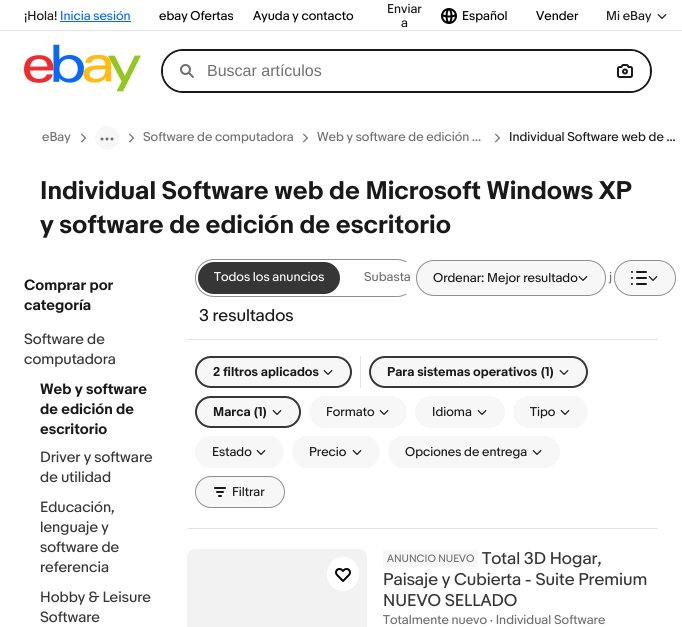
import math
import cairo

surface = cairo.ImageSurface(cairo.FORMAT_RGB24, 682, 627)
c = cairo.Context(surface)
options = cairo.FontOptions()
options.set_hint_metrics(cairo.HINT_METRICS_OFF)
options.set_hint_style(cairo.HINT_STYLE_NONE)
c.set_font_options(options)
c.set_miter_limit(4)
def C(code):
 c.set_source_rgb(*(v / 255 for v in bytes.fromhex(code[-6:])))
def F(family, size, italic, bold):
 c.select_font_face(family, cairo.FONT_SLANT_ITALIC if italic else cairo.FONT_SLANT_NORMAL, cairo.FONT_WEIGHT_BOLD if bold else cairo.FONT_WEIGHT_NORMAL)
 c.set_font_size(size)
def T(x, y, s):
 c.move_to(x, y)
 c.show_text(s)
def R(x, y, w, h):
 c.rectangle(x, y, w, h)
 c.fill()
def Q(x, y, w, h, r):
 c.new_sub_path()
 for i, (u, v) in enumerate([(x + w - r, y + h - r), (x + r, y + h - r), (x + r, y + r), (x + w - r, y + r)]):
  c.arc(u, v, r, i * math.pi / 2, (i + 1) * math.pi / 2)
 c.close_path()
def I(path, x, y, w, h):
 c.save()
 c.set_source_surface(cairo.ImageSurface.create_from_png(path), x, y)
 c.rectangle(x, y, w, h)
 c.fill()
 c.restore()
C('ffffff')
c.paint()
F('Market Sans',12,0,0)
C('191919')
T(24,20,'¡Hola!')
C('0968f6')
T(60,20,'Inicia sesión')
R(60,21,71,1)
C('000000')
T(159,20,'ebay Ofertas')
T(253,20,'Ayuda y contacto')
C('191919')
T(387,13,'Enviar')
T(401,27,'a')
I('1.png',441,8,16,16)
C('000000')
T(462,20,'Español')
T(536,20,'Vender')
C('191919')
T(606,20,'Mi eBay')
I('2.png',657,14,10,5)
I('3.png',24,44,117,48)
Q(162,50,489,42,21)
c.stroke()
c.save()
Q(163,51,487,40,20)
c.clip()
C('e5e5e5')
R(649,65,1,12)
C('ffffff')
c.new_path()
c.move_to(183,51)
c.line_to(649,51)
c.line_to(649,91)
c.line_to(183,91)
c.curve_to(172,91,163,82,163,71)
c.curve_to(163,60,172,51,183,51)
c.close_path()
c.fill()
c.restore()
I('4.png',180,64,14,14)
F('Liberation Sans',16,0,0)
C('707070')
T(207,76,'Buscar artículos')
I('5.png',617,64,16,14)
F('Market Sans',12,0,0)
T(42,141,'eBay')
I('6.png',81,133,5,10)
C('f7f7f7')
c.arc(107,138,12,0,2 * math.pi)
c.fill()
I('7.png',100,137,14,4)
I('6.png',129,133,5,10)
C('707070')
T(143,141,'Software de computadora')
I('6.png',303,133,5,10)
T(317,141,'Web y software de edición …')
I('6.png',495,133,5,10)
C('191919')
T(509,141,'Individual Software web de …')
F('Market Sans',24,0,1)
T(40,199,'Individual Software web de Microsoft Windows XP')
T(40,233,'y software de edición de escritorio')
F('Market Sans',14,0,1)
T(24,290,'Comprar por')
T(24,310,'categoría')
F('Market Sans',14,0,0)
C('363636')
T(24,344,'Software de')
T(24,364,'computadora')
F('Market Sans',14,0,1)
C('191919')
T(40,394,'Web y software')
T(40,414,'de edición de')
T(40,434,'escritorio')
F('Market Sans',14,0,0)
C('363636')
T(40,462,'Driver y software')
T(40,482,'de utilidad')
T(40,512,'Educación,')
T(40,532,'lenguaje y')
T(40,552,'software de')
T(40,572,'referencia')
T(40,602,'Hobby & Leisure')
T(40,622,'Software')
C('e5e5e5')
R(187,339,471,1)
Q(195.5,259.5,220,37,18.5)
C('8f8f8f')
c.set_line_width(1)
c.stroke()
C('363636')
Q(198,262,142,32,16)
c.fill()
F('Market Sans',12,0,0)
C('ffffff')
T(214,281,'Todos los anuncios')
Q(348,262,79,32,16)
c.fill()
C('707070')
T(364,281,'Subasta')
T(609,281,'j')
C('f7f7f7')
Q(416.5,260.5,189,35,17.5)
c.fill_preserve()
C('8f8f8f')
c.stroke()
C('191919')
T(433,282,'Ordenar: Mejor resultado')
I('8.png',578,276,10,5)
C('f7f7f7')
Q(614.5,260.5,61,35,17.5)
c.fill_preserve()
C('8f8f8f')
c.stroke()
I('9.png',631,271,16,14)
I('8.png',648,276,10,5)
F('Market Sans',16,0,0)
C('191919')
T(199,321,'3 resultados')
C('e5e5e5')
R(187,528,471,1)
R(360,356,1,32)
C('f7f7f7')
Q(196,357,155,30,15)
c.fill_preserve()
C('363636')
c.set_line_width(2)
c.stroke()
F('Market Sans',12,0,1)
C('191919')
T(213,376,'2 filtros aplicados')
I('8.png',323,370,10,5)
C('f7f7f7')
Q(370,357,217,30,15)
c.fill_preserve()
C('363636')
c.stroke()
C('191919')
T(387,376,'Para sistemas operativos')
T(541,376,'(1)')
I('8.png',559,370,10,5)
C('f7f7f7')
Q(196,397,104,30,15)
c.fill_preserve()
C('363636')
c.stroke()
C('191919')
T(213,416,'Marca')
T(254,416,'(1)')
I('8.png',272,410,10,5)
C('f7f7f7')
Q(309,396,98,32,16)
c.fill()
F('Market Sans',12,0,0)
C('191919')
T(326,416,'Formato')
I('8.png',379,410,10,5)
C('f7f7f7')
Q(415,396,90,32,16)
c.fill()
C('191919')
T(432,416,'Idioma')
I('8.png',477,410,10,5)
C('f7f7f7')
Q(513,396,75,32,16)
c.fill()
C('191919')
T(530,416,'Tipo')
I('8.png',560,410,10,5)
C('f7f7f7')
Q(195,436,89,32,16)
c.fill()
C('191919')
T(212,456,'Estado')
I('8.png',256,450,10,5)
C('f7f7f7')
Q(292,436,88,32,16)
c.fill()
C('191919')
T(309,456,'Precio')
I('8.png',352,450,10,5)
C('f7f7f7')
Q(388,436,172,32,16)
c.fill()
C('191919')
T(405,456,'Opciones de entrega')
I('8.png',532,450,10,5)
C('f7f7f7')
Q(195.5,476.5,89,31,15.5)
c.fill_preserve()
C('8f8f8f')
c.set_line_width(1)
c.stroke()
I('10.png',214,487,12,10)
C('191919')
T(232,496,'Filtrar')
C('f2f2f2')
Q(187,549,180,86,8)
c.fill()
C('ffffff')
c.new_path()
c.move_to(343,557)
c.curve_to(352,557,359,564.5,359,574)
c.curve_to(359,583.5,352,591,343,591)
c.curve_to(334,591,327,583.5,327,574)
c.curve_to(327,564.5,334,557,343,557)
c.close_path()
c.fill()
I('11.png',335,568,16,14)
C('f7f7f7')
R(383,550,95,17)
F('Market Sans',10,0,0)
C('707070')
T(387,562,'ANUNCIO NUEVO')
F('Market Sans',16,0,0)
C('363636')
T(482,564,'Total 3D Hogar,')
T(383,585,'Paisaje y Cubierta - Suite Premium')
T(383,606,'NUEVO SELLADO')
F('Market Sans',12,0,0)
C('707070')
T(383,624,'Totalmente nuevo · Individual Software')
C('e5e5e5')
R(0,30,682,1)
surface.write_to_png('o.png')
